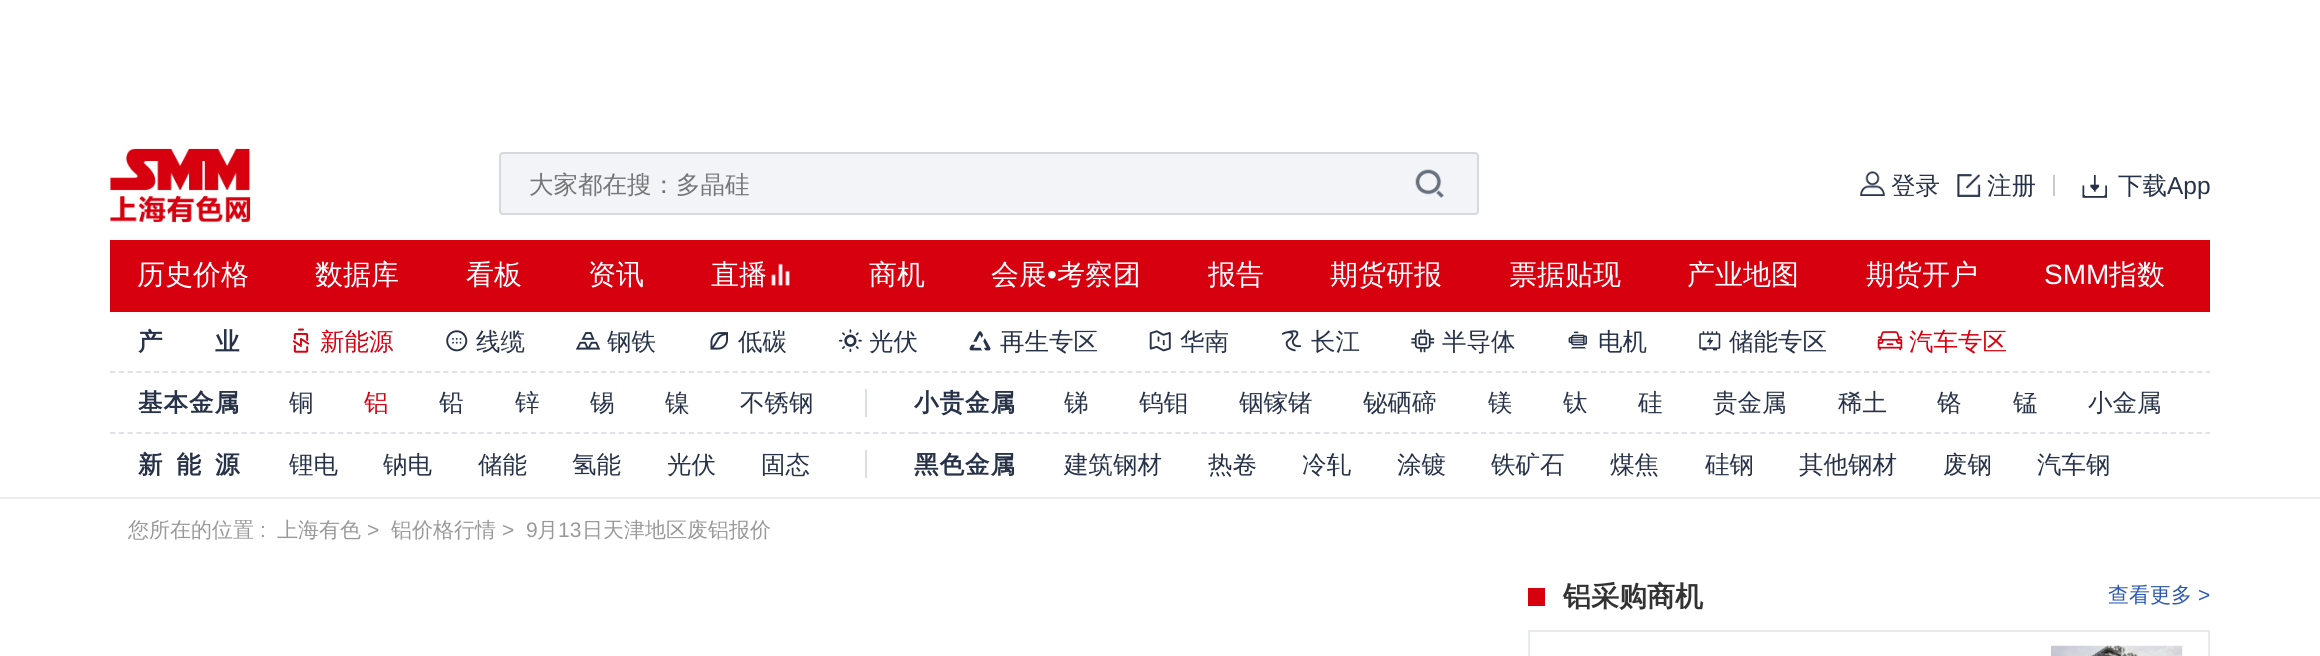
import math
import cairo

surface = cairo.ImageSurface(cairo.FORMAT_RGB24, 2320, 656)
c = cairo.Context(surface)
options = cairo.FontOptions()
options.set_hint_metrics(cairo.HINT_METRICS_OFF)
options.set_hint_style(cairo.HINT_STYLE_NONE)
c.set_font_options(options)
c.set_miter_limit(4)
def C(code):
 c.set_source_rgb(*(v / 255 for v in bytes.fromhex(code[-6:])))
def F(family, size, italic, bold):
 c.select_font_face(family, cairo.FONT_SLANT_ITALIC if italic else cairo.FONT_SLANT_NORMAL, cairo.FONT_WEIGHT_BOLD if bold else cairo.FONT_WEIGHT_NORMAL)
 c.set_font_size(size)
def T(x, y, s):
 c.move_to(x, y)
 c.show_text(s)
def L(x, y, s, letter, word):
 c.move_to(x, y)
 for ch in s:
  c.show_text(ch)
  c.rel_move_to(letter + word * (ch == ' '), 0)
def R(x, y, w, h):
 c.rectangle(x, y, w, h)
 c.fill()
def Q(x, y, w, h, r):
 c.new_sub_path()
 for i, (u, v) in enumerate([(x + w - r, y + h - r), (x + r, y + h - r), (x + r, y + r), (x + w - r, y + r)]):
  c.arc(u, v, r, i * math.pi / 2, (i + 1) * math.pi / 2)
 c.close_path()
def I(path, x, y, w, h):
 c.save()
 c.set_source_surface(cairo.ImageSurface.create_from_png(path), x, y)
 c.rectangle(x, y, w, h)
 c.fill()
 c.restore()
C('ffffff')
c.paint()
C('ededed')
R(0,497,2320,2)
I('1.png',110,148,141,75)
C('f3f4f8')
Q(500,153,978,61,3)
c.fill_preserve()
C('d7d8db')
c.stroke()
F('WenQuanYi Zen Hei Medium',24.5,0,0)
C('757575')
T(529,193,'大家都在搜：多晶硅')
I('2.png',1415,169,29,29)
I('3.png',1860,171,25,25)
C('273249')
T(1891,194,'登录')
I('4.png',1957,174,24,23)
T(1987,194,'注册')
C('c7cad1')
R(2053,175,2,21)
I('5.png',2082,175,25,23)
C('273249')
T(2118,194,'下载')
F('Liberation Sans',24.5,0,0)
T(2167,194,'App')
C('d7000f')
R(110,240,2100,72)
F('WenQuanYi Zen Hei Medium',28,0,0)
C('ffffff')
T(137,284,'历史价格')
T(315,284,'数据库')
T(466,284,'看板')
T(588,284,'资讯')
T(711,284,'直播')
I('6.png',771,263,19,23)
T(869,284,'商机')
T(991,284,'会展')
F('Liberation Sans',28,0,0)
T(1047,284,'•')
F('WenQuanYi Zen Hei Medium',28,0,0)
T(1057,284,'考察团')
T(1208,284,'报告')
T(1330,284,'期货研报')
T(1509,284,'票据贴现')
T(1687,284,'产业地图')
T(1866,284,'期货开户')
F('Liberation Sans',28,0,0)
T(2044,284,'SMM')
F('WenQuanYi Zen Hei Medium',28,0,0)
T(2109,284,'指数')
c.new_path()
c.move_to(110,372)
c.line_to(2210,372)
C('dddfe6')
c.set_line_width(1.8)
c.set_dash([5.25,3.52])
c.stroke()
F('WenQuanYi Zen Hei',24.5,0,1)
C('273249')
L(138,350,'产',-2,0)
L(215,350,'业',-2,0)
I('7.png',292,328,18,25)
F('WenQuanYi Zen Hei Medium',24.5,0,0)
C('d7000f')
T(320,350,'新能源')
I('8.png',446,330,22,22)
C('273249')
T(476,350,'线缆')
I('9.png',575,332,26,18)
T(607,350,'钢铁')
I('10.png',710,332,18,18)
T(738,350,'低碳')
I('11.png',839,329,23,24)
T(869,350,'光伏')
I('12.png',969,331,22,20)
T(1000,350,'再生专区')
I('13.png',1149,330,22,22)
T(1180,350,'华南')
I('14.png',1281,330,21,22)
T(1311,350,'长江')
I('15.png',1411,329,24,24)
T(1442,350,'半导体')
I('16.png',1568,331,19,18)
T(1598,350,'电机')
I('17.png',1699,331,22,20)
T(1729,350,'储能专区')
I('18.png',1877,331,26,20)
C('d7000f')
T(1909,350,'汽车专区')
c.new_path()
c.move_to(110,433)
c.line_to(913.5,433)
C('dddfe6')
c.stroke()
F('WenQuanYi Zen Hei',24.5,0,1)
C('273249')
L(138,411,'基本金属',1,0)
F('WenQuanYi Zen Hei Medium',24.5,0,0)
T(289,411,'铜')
C('d7000f')
T(364,411,'铝')
C('273249')
T(439,411,'铅')
T(515,411,'锌')
T(590,411,'锡')
T(665,411,'镍')
T(740,411,'不锈钢')
C('dddfe6')
R(865,389,2,28)
c.new_path()
c.move_to(913.5,433)
c.line_to(2210,433)
c.set_dash([5.25,3.48])
c.stroke()
F('WenQuanYi Zen Hei',24.5,0,1)
C('273249')
L(914,411,'小贵金属',1,0)
F('WenQuanYi Zen Hei Medium',24.5,0,0)
T(1064,411,'锑')
T(1139,411,'钨钼')
T(1239,411,'铟镓锗')
T(1363,411,'铋硒碲')
T(1488,411,'镁')
T(1563,411,'钛')
T(1638,411,'硅')
T(1713,411,'贵金属')
T(1838,411,'稀土')
T(1937,411,'铬')
T(2013,411,'锰')
T(2088,411,'小金属')
F('WenQuanYi Zen Hei',24.5,0,1)
L(138,473,'新能源',14,0)
F('WenQuanYi Zen Hei Medium',24.5,0,0)
T(289,473,'锂电')
T(383,473,'钠电')
T(478,473,'储能')
T(572,473,'氢能')
T(667,473,'光伏')
T(761,473,'固态')
C('dddfe6')
R(865,450,2,28)
F('WenQuanYi Zen Hei',24.5,0,1)
C('273249')
L(914,473,'黑色金属',1,0)
F('WenQuanYi Zen Hei Medium',24.5,0,0)
T(1064,473,'建筑钢材')
T(1208,473,'热卷')
T(1302,473,'冷轧')
T(1397,473,'涂镀')
T(1491,473,'铁矿石')
T(1610,473,'煤焦')
T(1705,473,'硅钢')
T(1799,473,'其他钢材')
T(1943,473,'废钢')
T(2037,473,'汽车钢')
F('WenQuanYi Zen Hei Medium',21,0,0)
C('999999')
T(128,537,'您所在的位置')
F('Liberation Sans',21,0,0)
T(260,537,':')
F('WenQuanYi Zen Hei Medium',21,0,0)
T(277,537,'上海有色')
F('Liberation Sans',21,0,0)
T(367,537,'>')
F('WenQuanYi Zen Hei Medium',21,0,0)
T(391,537,'铝价格行情')
F('Liberation Sans',21,0,0)
T(502,537,'>')
T(526,537,'9')
F('WenQuanYi Zen Hei Medium',21,0,0)
T(537,537,'月')
F('Liberation Sans',21,0,0)
T(558,537,'13')
F('WenQuanYi Zen Hei Medium',21,0,0)
T(582,537,'日天津地区废铝报价')
C('d7000f')
R(1528,588,17,18)
F('WenQuanYi Zen Hei',28,0,1)
C('333333')
T(1563,606,'铝采购商机')
F('WenQuanYi Zen Hei Medium',21,0,0)
C('2d59b1')
T(2108,602,'查看更多')
F('Liberation Sans',21,0,0)
T(2198,602,'>')
c.rectangle(1529,631,680,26)
C('e9eaea')
c.set_line_width(2)
c.set_dash([])
c.stroke()
I('19.png',2051,645,132,11)
surface.write_to_png('o.png')
